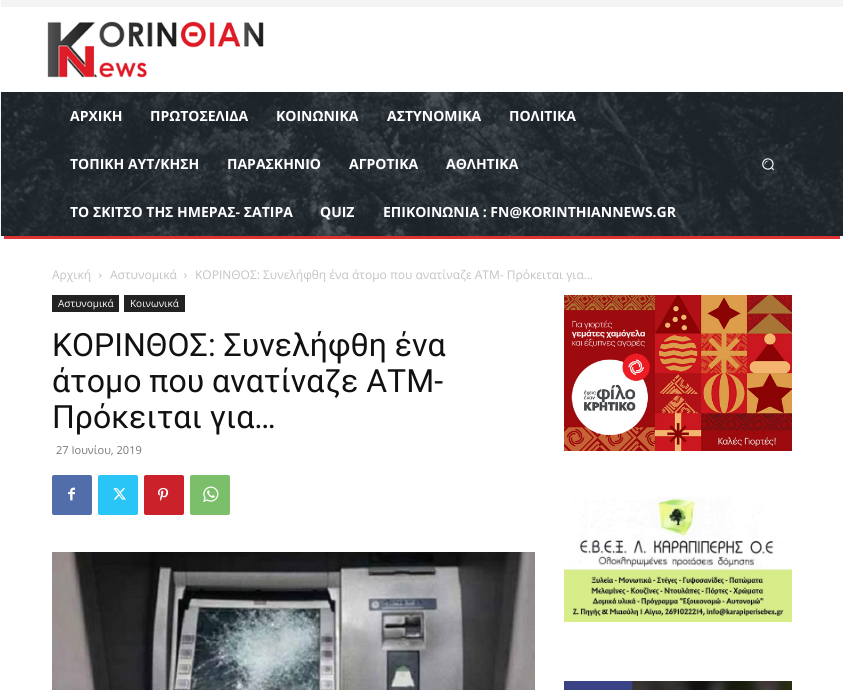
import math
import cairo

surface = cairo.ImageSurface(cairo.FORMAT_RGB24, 843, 690)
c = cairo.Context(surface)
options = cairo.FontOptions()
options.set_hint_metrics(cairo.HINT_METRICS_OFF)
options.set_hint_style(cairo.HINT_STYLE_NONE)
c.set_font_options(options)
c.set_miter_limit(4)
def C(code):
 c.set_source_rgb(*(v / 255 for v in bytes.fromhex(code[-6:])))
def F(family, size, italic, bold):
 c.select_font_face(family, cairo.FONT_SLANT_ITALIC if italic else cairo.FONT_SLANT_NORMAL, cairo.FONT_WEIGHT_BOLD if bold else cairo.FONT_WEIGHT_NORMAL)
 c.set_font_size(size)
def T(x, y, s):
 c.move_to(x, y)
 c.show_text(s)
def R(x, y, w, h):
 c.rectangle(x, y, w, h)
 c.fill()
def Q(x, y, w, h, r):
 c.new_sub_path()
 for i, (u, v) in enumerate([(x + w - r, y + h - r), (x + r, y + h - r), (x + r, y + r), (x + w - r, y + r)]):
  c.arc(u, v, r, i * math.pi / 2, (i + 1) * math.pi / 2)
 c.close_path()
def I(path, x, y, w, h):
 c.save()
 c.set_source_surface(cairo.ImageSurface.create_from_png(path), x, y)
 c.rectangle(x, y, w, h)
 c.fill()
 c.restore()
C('ffffff')
c.paint()
C('f4f4f4')
R(1,0,842,7)
I('1.png',47,21,217,57)
C('232d35')
R(1,92,842,144)
I('2.png',0,92,843,144)
F('Open Sans',14,0,1)
C('ffffff')
T(70,121,'ΑΡΧΙΚΗ')
T(150,121,'ΠΡΩΤΟΣΕΛΙΔΑ')
T(276,121,'ΚΟΙΝΩΝΙΚΑ')
T(387,121,'ΑΣΤΥΝΟΜΙΚΑ')
T(509,121,'ΠΟΛΙΤΙΚΑ')
T(70,169,'ΤΟΠΙΚΗ ΑΥΤ/ΚΗΣΗ')
T(227,169,'ΠΑΡΑΣΚΗΝΙΟ')
T(349,169,'ΑΓΡΟΤΙΚΑ')
T(446,169,'ΑΘΛΗΤΙΚΑ')
T(70,217,'ΤΟ ΣΚΙΤΣΟ ΤΗΣ ΗΜΕΡΑΣ- ΣΑΤΙΡΑ')
T(320,217,'QUIZ')
T(383,217,'ΕΠΙΚΟΙΝΩΝΙΑ : FN@KORINTHIANNEWS.GR')
I('3.png',762,158,12,13)
C('dd3333')
R(4,236,836,3)
F('Open Sans',12,0,0)
C('c3c3c3')
T(52,279,'Αρχική')
I('4.png',99,273,3,5)
T(110,279,'Αστυνομικά')
I('4.png',184,273,3,5)
T(195,279,'ΚΟΡΙΝΘΟΣ: Συνελήφθη ένα άτομο που ανατίναζε ΑΤΜ- Πρόκειται για…')
C('222222')
R(52,295,67,17)
F('Open Sans',10,0,0)
C('ffffff')
T(58,307,'Αστυνομικά')
C('222222')
R(124,295,61,17)
C('ffffff')
T(130,307,'Κοινωνικά')
F('Roboto',32,0,0)
C('111111')
T(52,356,'ΚΟΡΙΝΘΟΣ: Συνελήφθη ένα')
T(52,392,'άτομο που ανατίναζε ΑΤΜ-')
T(52,428,'Πρόκειται για…')
F('Open Sans',11,0,0)
C('767676')
T(56,454,'27 Ιουνίου, 2019')
C('516eab')
Q(52,475,40,40,2)
c.fill()
I('5.png',68,487,7,14)
C('29c5f6')
Q(98,475,40,40,2)
c.fill()
I('6.png',113,488,13,12)
C('ca212a')
Q(144,475,40,40,2)
c.fill()
I('7.png',158,487,11,14)
C('7bbf6a')
Q(190,475,40,40,2)
c.fill()
I('8.png',203,486,16,16)
I('9.png',52,552,483,138)
I('10.png',564,295,228,156)
I('11.png',564,497,228,125)
I('12.png',564,681,228,9)
surface.write_to_png('o.png')
